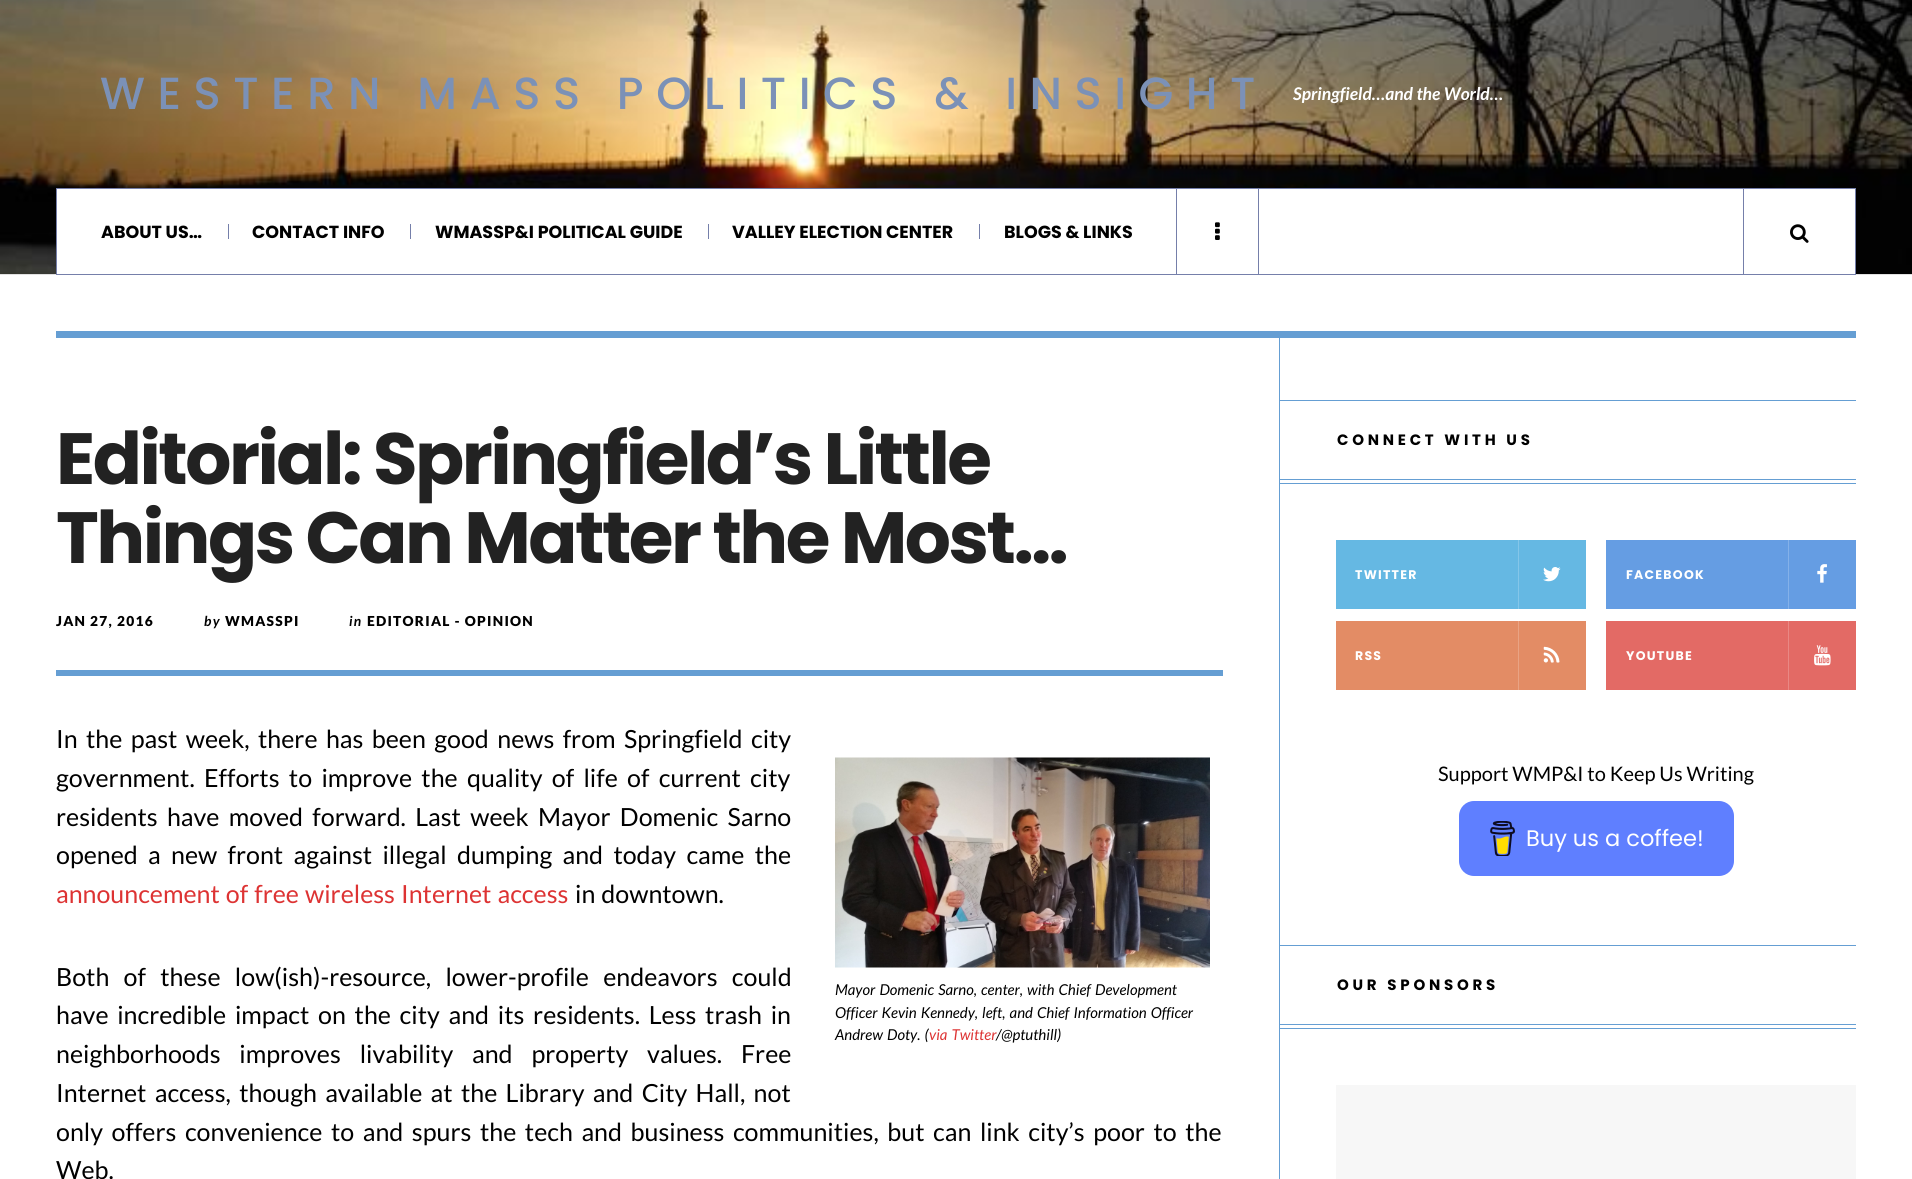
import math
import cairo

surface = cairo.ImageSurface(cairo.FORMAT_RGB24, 1912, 1179)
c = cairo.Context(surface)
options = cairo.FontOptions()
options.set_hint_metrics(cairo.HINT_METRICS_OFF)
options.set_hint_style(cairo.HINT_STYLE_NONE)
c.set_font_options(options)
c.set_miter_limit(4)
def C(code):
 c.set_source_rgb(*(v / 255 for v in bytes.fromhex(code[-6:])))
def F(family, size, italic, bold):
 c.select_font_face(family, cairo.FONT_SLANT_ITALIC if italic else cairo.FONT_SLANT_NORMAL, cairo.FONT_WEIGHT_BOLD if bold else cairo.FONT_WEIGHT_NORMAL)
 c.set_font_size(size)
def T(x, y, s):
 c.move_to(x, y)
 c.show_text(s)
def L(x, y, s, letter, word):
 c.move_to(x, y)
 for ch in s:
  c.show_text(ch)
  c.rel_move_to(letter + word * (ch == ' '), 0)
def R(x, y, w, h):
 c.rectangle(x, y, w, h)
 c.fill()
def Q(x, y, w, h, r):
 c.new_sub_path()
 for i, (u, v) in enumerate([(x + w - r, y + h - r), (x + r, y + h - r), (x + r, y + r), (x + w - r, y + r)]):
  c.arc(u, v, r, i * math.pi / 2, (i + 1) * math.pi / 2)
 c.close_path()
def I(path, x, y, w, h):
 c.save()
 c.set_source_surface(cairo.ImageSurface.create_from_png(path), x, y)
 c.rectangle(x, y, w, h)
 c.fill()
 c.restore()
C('ffffff')
c.paint()
I('1.png',0,0,1912,274)
C('e1e1e1')
R(0,274,1912,1)
F('Poppins Medium',45,0,0)
C('7b91b7')
L(100,109,'WESTERN MASS POLITICS & INSIGHT',12.5,0)
F('Lato',17.5,1,1)
C('ffffff')
T(1293,100,'Springfield…and the World…')
c.rectangle(56.5,188.5,1799,86)
c.fill_preserve()
C('757faa')
c.set_line_width(1)
c.stroke()
R(1176,189,1,85)
F('Poppins',17.5,0,1)
C('000000')
T(101,238,'ABOUT US…')
C('757faa')
R(228,224,1,15)
C('000000')
T(252,238,'CONTACT INFO')
C('757faa')
R(410,224,1,15)
C('000000')
T(435,238,'WMASSP&I POLITICAL GUIDE')
C('757faa')
R(708,224,1,15)
C('000000')
T(732,238,'VALLEY ELECTION CENTER')
C('757faa')
R(979,224,1,15)
C('000000')
T(1004,238,'BLOGS & LINKS')
C('757faa')
R(1258,189,1,85)
I('2.png',1215,222,5,18)
R(1743,189,1,85)
I('3.png',1790,224,19,19)
C('659ed3')
R(56,331,1800,7)
R(1279,338,1,841)
F('Poppins',72.5,0,1)
C('222222')
L(56,484,'Editorial: Springfield’s Little',-2.5,0)
L(56,563,'Things Can Matter the Most…',-2.5,0)
F('Lato Black',13.75,0,0)
C('000000')
L(56,626,'JAN 27, 2016',1.25,0)
F('Lato',13.75,1,1)
L(204,626,'by',1.25,0)
F('Lato Black',13.75,0,0)
L(225,626,'WMASSPI',1.25,0)
F('Lato',13.75,1,1)
L(349,626,'in',1.25,0)
F('Lato Black',13.75,0,0)
L(367,626,'EDITORIAL - OPINION',1.25,0)
C('659ed3')
R(56,670,1167,6)
F('Lato',25,0,0)
C('000000')
L(56,748,'In the past week, there has been good news from Springfield city',0,3.6)
L(56,787,'government. Efforts to improve the quality of life of current city',0,4.5)
L(56,826,'residents have moved forward. Last week Mayor Domenic Sarno',0,4.5)
L(56,864,'opened a new front against illegal dumping and today came the',0,5.5)
C('dd3333')
L(56,903,'announcement of free wireless Internet access',0,1.25)
C('000000')
L(575,903,'in downtown.',0,1.25)
L(56,986,'Both of these low(ish)-resource, lower-profile endeavors could',0,9.5)
L(56,1024,'have incredible impact on the city and its residents. Less trash in',0,3.9)
L(56,1063,'neighborhoods improves livability and property values. Free',0,14)
L(56,1102,'Internet access, though available at the Library and City Hall, not',0,3.5)
L(56,1141,'only offers convenience to and spurs the tech and business communities, but can link city’s poor to the',0,3.75)
T(56,1179,'Web.')
I('4.png',835,757,375,211)
F('Lato',15,1,0)
L(835,995,'Mayor Domenic Sarno, center, with Chief Development',0,1.25)
L(835,1018,'Officer Kevin Kennedy, left, and Chief Information Officer',0,1.25)
L(835,1040,'Andrew Doty. (',0,1.25)
C('dd3333')
L(929,1040,'via Twitter',0,1.25)
C('000000')
T(996,1040,'/@ptuthill)')
C('659ed3')
R(1280,400,576,1)
R(1280,479,576,1)
R(1280,483,576,1)
F('Poppins',15,0,1)
C('000000')
L(1337,445,'CONNECT WITH US',3.75,0)
C('65b8e3')
R(1336,540,250,69)
F('Poppins',12.5,0,1)
C('ffffff')
L(1355,579,'TWITTER',1.25,0)
C('84c6e9')
R(1518,540,1,69)
I('5.png',1543,567,18,15)
C('659de3')
R(1606,540,250,69)
C('ffffff')
L(1626,579,'FACEBOOK',1.25,0)
C('84b1e9')
R(1788,540,1,69)
I('6.png',1817,564,10,19)
C('e38c65')
R(1336,621,250,69)
C('ffffff')
L(1355,660,'RSS',1.25,0)
C('e9a384')
R(1518,621,1,69)
I('7.png',1543,646,17,17)
C('e36a65')
R(1606,621,250,69)
C('ffffff')
L(1626,660,'YOUTUBE',1.25,0)
C('e98884')
R(1788,621,1,69)
I('8.png',1814,645,17,21)
F('Lato',20,0,0)
C('000000')
T(1438,781,'Support WMP&I to Keep Us Writing')
C('5f7fff')
Q(1459,801,275,75,15)
c.fill()
I('9.png',1490,821,25,35)
F('Poppins',22.5,0,0)
C('ffffff')
T(1526,846,'Buy us a coffee!')
C('659ed3')
R(1280,945,576,1)
R(1280,1024,576,1)
R(1280,1028,576,1)
F('Poppins',15,0,1)
C('000000')
L(1337,990,'OUR SPONSORS',3.75,0)
C('f7f7f7')
R(1336,1085,520,94)
surface.write_to_png('o.png')
